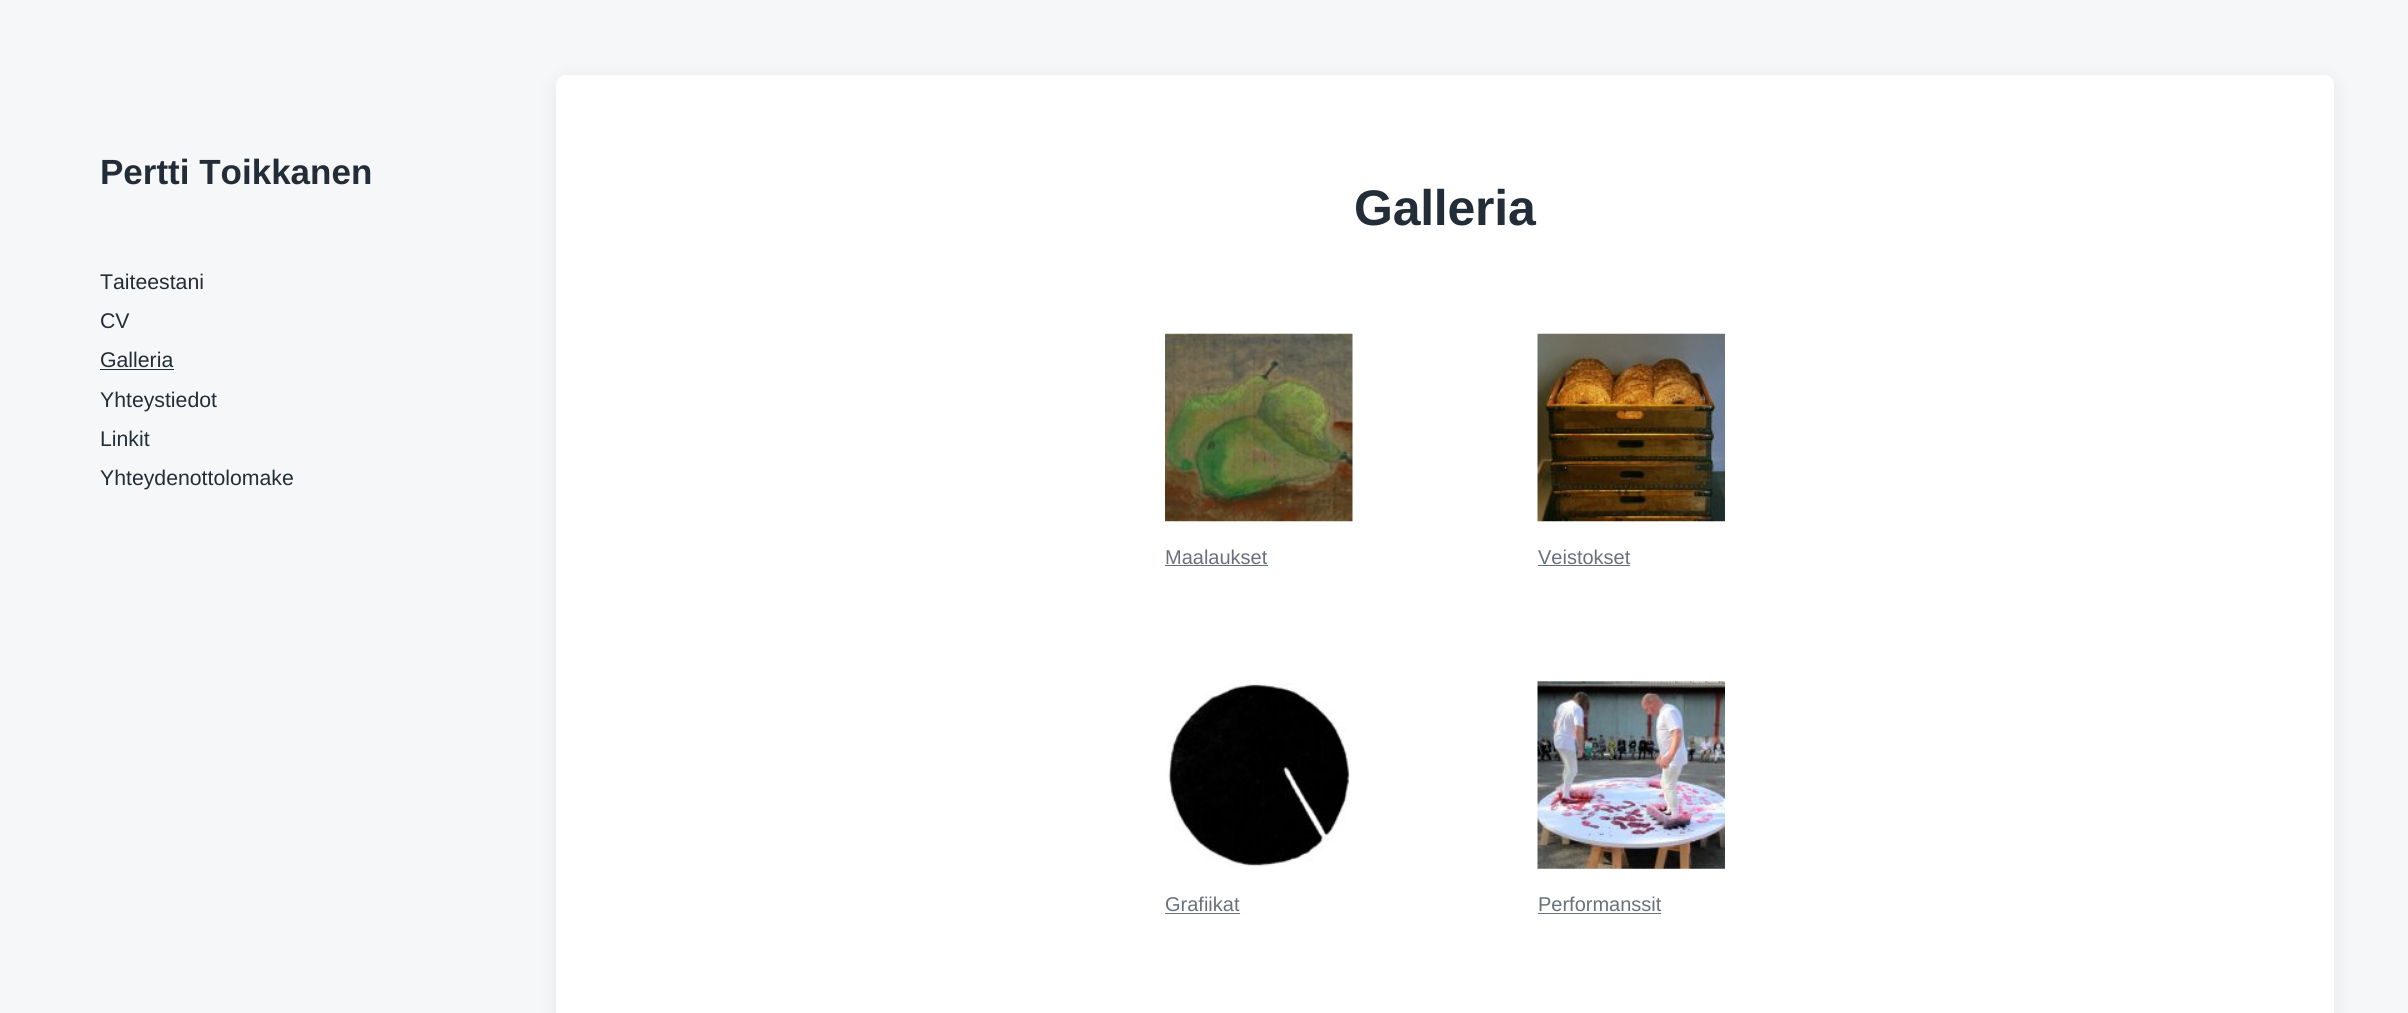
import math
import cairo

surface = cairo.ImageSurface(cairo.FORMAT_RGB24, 2408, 1013)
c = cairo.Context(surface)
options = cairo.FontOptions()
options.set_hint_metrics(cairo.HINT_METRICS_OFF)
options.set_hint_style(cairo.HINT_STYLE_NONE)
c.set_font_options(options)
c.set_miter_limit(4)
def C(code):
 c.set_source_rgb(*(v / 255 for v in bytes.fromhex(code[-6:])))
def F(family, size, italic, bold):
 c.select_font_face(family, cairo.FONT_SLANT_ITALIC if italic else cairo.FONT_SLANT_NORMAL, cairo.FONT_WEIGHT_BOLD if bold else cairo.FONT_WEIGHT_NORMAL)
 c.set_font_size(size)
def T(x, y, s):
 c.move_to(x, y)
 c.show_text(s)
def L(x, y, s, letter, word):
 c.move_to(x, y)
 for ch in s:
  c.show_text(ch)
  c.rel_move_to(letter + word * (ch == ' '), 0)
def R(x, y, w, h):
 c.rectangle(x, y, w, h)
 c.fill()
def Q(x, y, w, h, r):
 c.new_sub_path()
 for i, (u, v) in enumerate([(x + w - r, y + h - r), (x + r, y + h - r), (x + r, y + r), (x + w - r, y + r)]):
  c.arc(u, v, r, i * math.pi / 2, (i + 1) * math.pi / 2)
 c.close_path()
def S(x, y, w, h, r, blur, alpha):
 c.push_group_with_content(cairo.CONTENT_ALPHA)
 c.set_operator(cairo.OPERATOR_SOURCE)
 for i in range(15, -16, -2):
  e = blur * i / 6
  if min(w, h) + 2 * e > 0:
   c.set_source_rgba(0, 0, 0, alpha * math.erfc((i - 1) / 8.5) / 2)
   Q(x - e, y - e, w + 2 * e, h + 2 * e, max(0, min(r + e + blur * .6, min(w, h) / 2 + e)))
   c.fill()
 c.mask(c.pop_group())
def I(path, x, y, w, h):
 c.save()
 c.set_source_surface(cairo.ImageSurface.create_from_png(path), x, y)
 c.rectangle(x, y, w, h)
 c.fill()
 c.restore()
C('f6f7f8')
c.paint()
F('Liberation Sans',35,0,1)
C('232d37')
T(100,184,'Pertti Toikkanen')
F('Liberation Sans',21.25,0,0)
T(100,289,'Taiteestani')
T(100,328,'CV')
T(100,367,'Galleria')
R(100,369,74,1)
T(100,407,'Yhteystiedot')
T(100,446,'Linkit')
T(100,485,'Yhteydenottolomake')
C('050a0f')
S(556,79,1778,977,10,11,.07)
C('ffffff')
Q(556,75,1778,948,10)
c.fill()
F('Liberation Sans',50,0,1)
C('232d37')
L(1354,225,'Galleria',-.25,0)
I('1.png',1165,333,188,189)
F('Liberation Sans',20,0,0)
C('68717b')
T(1165,564,'Maalaukset')
R(1165,565,103,1)
I('2.png',1537,333,188,189)
T(1538,564,'Veistokset')
R(1538,565,92,1)
I('3.png',1167,683,184,184)
T(1165,911,'Grafiikat')
R(1165,913,75,1)
I('4.png',1537,681,188,188)
T(1538,911,'Performanssit')
R(1538,913,123,1)
surface.write_to_png('o.png')
